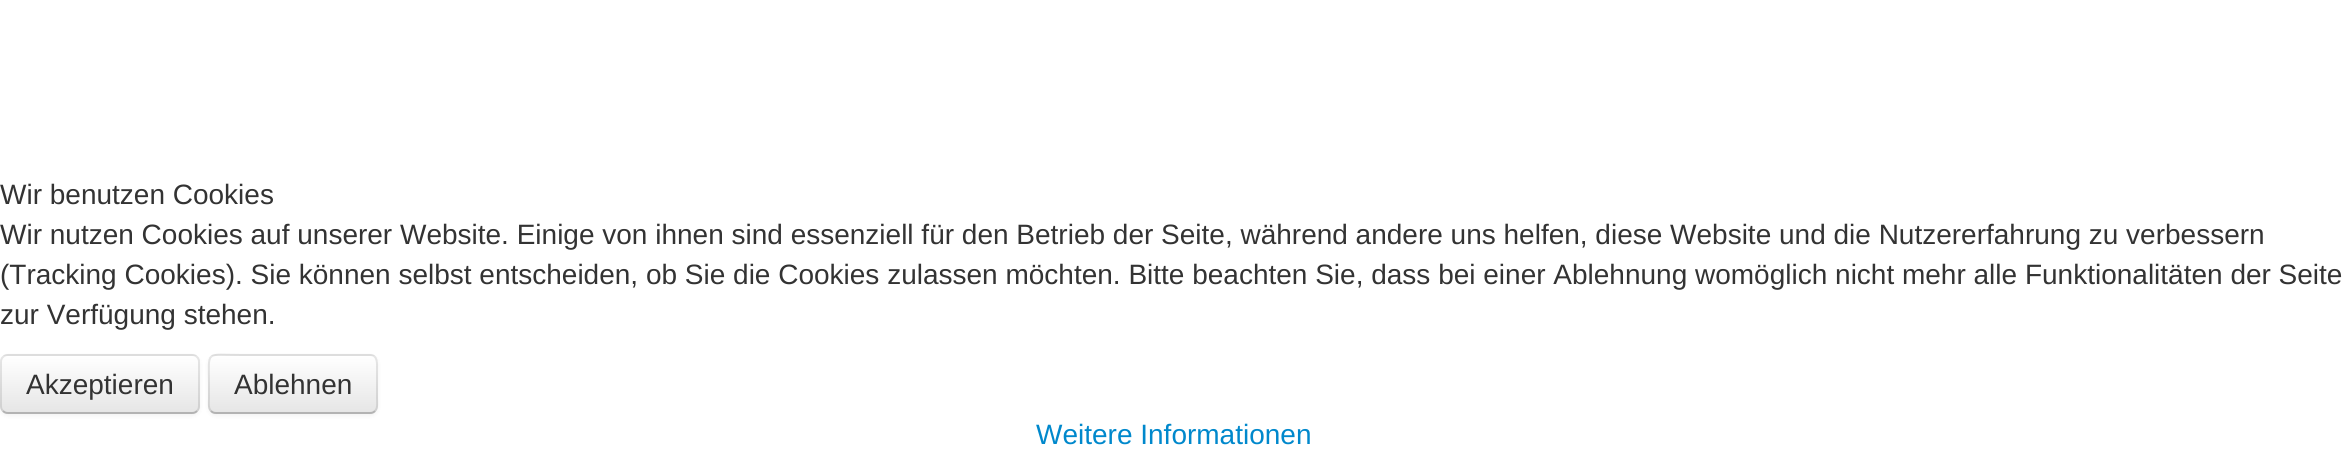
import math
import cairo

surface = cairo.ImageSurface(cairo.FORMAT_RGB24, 2348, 453)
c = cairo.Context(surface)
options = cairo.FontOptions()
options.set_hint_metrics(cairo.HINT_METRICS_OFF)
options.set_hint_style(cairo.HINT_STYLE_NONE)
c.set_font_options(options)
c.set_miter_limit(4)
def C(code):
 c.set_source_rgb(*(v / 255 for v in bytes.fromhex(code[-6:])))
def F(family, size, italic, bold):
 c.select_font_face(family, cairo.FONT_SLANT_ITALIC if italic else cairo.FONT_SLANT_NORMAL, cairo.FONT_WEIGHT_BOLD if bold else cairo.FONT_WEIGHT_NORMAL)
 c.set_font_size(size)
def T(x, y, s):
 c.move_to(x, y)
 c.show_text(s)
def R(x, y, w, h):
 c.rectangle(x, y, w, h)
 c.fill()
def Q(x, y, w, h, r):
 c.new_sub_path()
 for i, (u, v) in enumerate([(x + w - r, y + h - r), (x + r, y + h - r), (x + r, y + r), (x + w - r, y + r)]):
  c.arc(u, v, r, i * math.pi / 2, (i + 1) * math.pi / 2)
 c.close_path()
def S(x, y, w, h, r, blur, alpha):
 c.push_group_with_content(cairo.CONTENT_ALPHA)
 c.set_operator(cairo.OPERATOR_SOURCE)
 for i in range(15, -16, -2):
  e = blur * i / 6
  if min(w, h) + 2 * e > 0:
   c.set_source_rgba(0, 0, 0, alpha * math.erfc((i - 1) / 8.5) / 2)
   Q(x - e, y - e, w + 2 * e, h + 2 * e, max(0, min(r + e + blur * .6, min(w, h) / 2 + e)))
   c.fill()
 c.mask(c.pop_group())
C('ffffff')
c.paint()
F('Liberation Sans',28,0,0)
C('333333')
T(0,204,'Wir benutzen Cookies')
T(0,244,'Wir nutzen Cookies auf unserer Website. Einige von ihnen sind essenziell für den Betrieb der Seite, während andere uns helfen, diese Website und die Nutzererfahrung zu verbessern')
T(0,284,'(Tracking Cookies). Sie können selbst entscheiden, ob Sie die Cookies zulassen möchten. Bitte beachten Sie, dass bei einer Ablehnung womöglich nicht mehr alle Funktionalitäten der Seite')
T(0,324,'zur Verfügung stehen.')
C('000000')
S(0,356,200,60,8,2,.05)
C('f5f5f5')
Q(0,354,200,60,8)
c.fill()
c.save()
Q(0,354,200,60,8)
c.clip()
gradient = cairo.LinearGradient(100,356,100,412)
gradient.add_color_stop_rgba(0,1,1,1,1)
gradient.add_color_stop_rgba(1,0.902,0.902,0.902,1)
c.set_source(gradient)
R(0,356,200,56)
c.restore()
c.new_path()
c.move_to(197,411)
c.curve_to(195.5,412.5,194,413,192,413)
c.line_to(8,413)
c.curve_to(6,413,4.5,412.5,3,411)
C('b3b3b3')
c.stroke()
c.new_path()
c.move_to(3,411)
c.curve_to(1.5,409.5,1,408,1,406)
c.line_to(1,362)
c.curve_to(1,360,1.5,358.5,3,357)
c.curve_to(4.5,355.5,6,355,8,355)
c.line_to(192,355)
c.curve_to(194,355,195.5,355.5,197,357)
c.curve_to(198.5,358.5,199,360,199,362)
c.line_to(199,406)
c.curve_to(199,408,198.5,409.5,197,411)
c.set_source_rgba(0,0,0,0.1)
c.stroke()
C('333333')
T(26,394,'Akzeptieren')
C('000000')
S(208,356,170,60,8,2,.05)
C('f5f5f5')
Q(208,354,170,60,8)
c.fill()
c.save()
Q(208,354,170,60,8)
c.clip()
gradient = cairo.LinearGradient(293,356,293,412)
gradient.add_color_stop_rgba(0,1,1,1,1)
gradient.add_color_stop_rgba(1,0.902,0.902,0.902,1)
c.set_source(gradient)
R(208,356,170,56)
c.restore()
c.new_path()
c.move_to(375,411)
c.curve_to(373.5,412.5,372,413,370,413)
c.line_to(216,413)
c.curve_to(214,413,212.5,412.5,211,411)
C('b3b3b3')
c.stroke()
c.new_path()
c.move_to(211,411)
c.curve_to(208,408,209,402.5,209,398.5)
c.line_to(209,384)
c.curve_to(209,349.5,204.5,355,241.5,355)
c.line_to(370,355)
c.curve_to(378,355,377,364,377,369.5)
c.line_to(377,398.5)
c.curve_to(377,402.5,378,408,375,411)
c.set_source_rgba(0,0,0,0.1)
c.stroke()
C('333333')
T(234,394,'Ablehnen')
C('0088cc')
T(1036,444,'Weitere Informationen')
surface.write_to_png('o.png')
